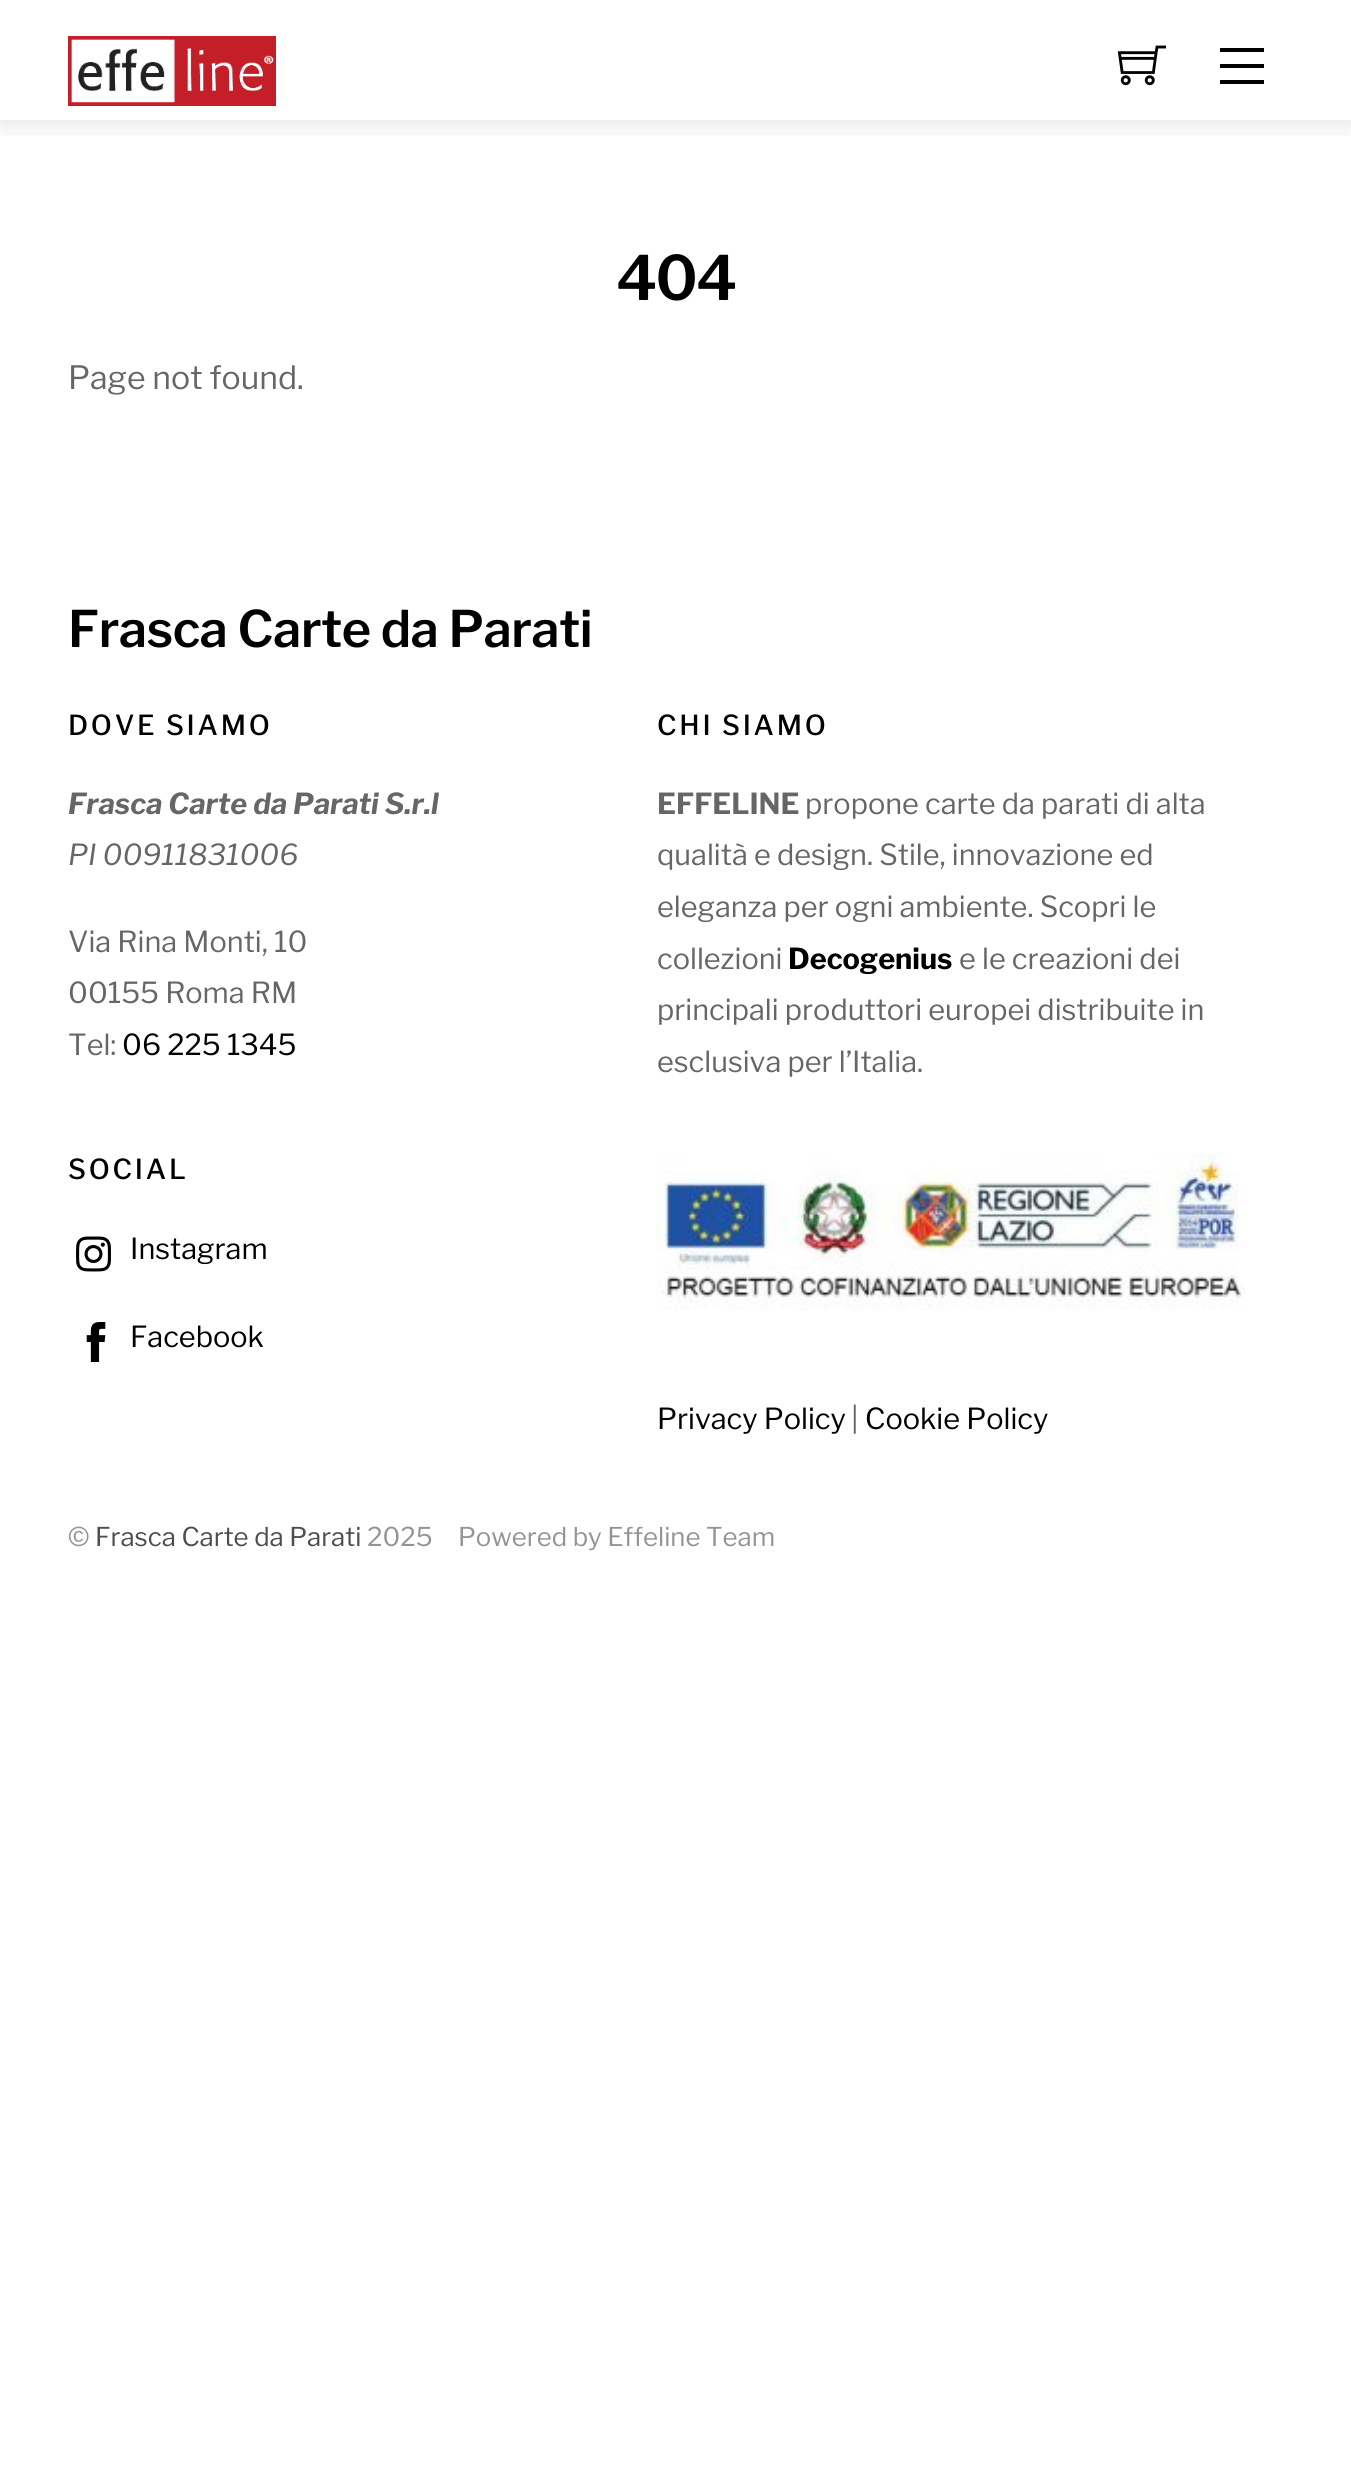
import math
import cairo

surface = cairo.ImageSurface(cairo.FORMAT_RGB24, 1351, 2467)
c = cairo.Context(surface)
options = cairo.FontOptions()
options.set_hint_metrics(cairo.HINT_METRICS_OFF)
options.set_hint_style(cairo.HINT_STYLE_NONE)
c.set_font_options(options)
c.set_miter_limit(4)
def C(code):
 c.set_source_rgb(*(v / 255 for v in bytes.fromhex(code[-6:])))
def F(family, size, italic, bold):
 c.select_font_face(family, cairo.FONT_SLANT_ITALIC if italic else cairo.FONT_SLANT_NORMAL, cairo.FONT_WEIGHT_BOLD if bold else cairo.FONT_WEIGHT_NORMAL)
 c.set_font_size(size)
def T(x, y, s):
 c.move_to(x, y)
 c.show_text(s)
def L(x, y, s, letter, word):
 c.move_to(x, y)
 for ch in s:
  c.show_text(ch)
  c.rel_move_to(letter + word * (ch == ' '), 0)
def R(x, y, w, h):
 c.rectangle(x, y, w, h)
 c.fill()
def Q(x, y, w, h, r):
 c.new_sub_path()
 for i, (u, v) in enumerate([(x + w - r, y + h - r), (x + r, y + h - r), (x + r, y + r), (x + w - r, y + r)]):
  c.arc(u, v, r, i * math.pi / 2, (i + 1) * math.pi / 2)
 c.close_path()
def S(x, y, w, h, r, blur, alpha):
 c.push_group_with_content(cairo.CONTENT_ALPHA)
 c.set_operator(cairo.OPERATOR_SOURCE)
 for i in range(15, -16, -2):
  e = blur * i / 6
  if min(w, h) + 2 * e > 0:
   c.set_source_rgba(0, 0, 0, alpha * math.erfc((i - 1) / 8.5) / 2)
   Q(x - e, y - e, w + 2 * e, h + 2 * e, max(0, min(r + e + blur * .6, min(w, h) / 2 + e)))
   c.fill()
 c.mask(c.pop_group())
def I(path, x, y, w, h):
 c.save()
 c.set_source_surface(cairo.ImageSurface.create_from_png(path), x, y)
 c.rectangle(x, y, w, h)
 c.fill()
 c.restore()
C('ffffff')
c.paint()
c.save()
c.rectangle(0,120,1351,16)
c.clip()
C('000000')
S(0,2,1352,120,0,15,.12)
c.restore()
I('1.png',68,36,208,70)
I('2.png',1118,45,48,41)
C('000000')
R(1220,48,44,4)
R(1220,80,44,4)
R(1220,64,44,4)
F('Libre Franklin SemiBold',61,0,0)
L(616,300,'404',-2,0)
F('Libre Franklin',32,0,0)
C('666666')
T(68,389,'Page not found.')
F('Libre Franklin SemiBold',50.25,0,0)
C('000000')
L(68,647,'Frasca Carte da Parati',-.4,0)
F('Libre Franklin Medium',27.5,0,0)
L(68,735,'DOVE SIAMO',2.75,0)
F('Libre Franklin',28.9,1,1)
C('666666')
T(68,814,'Frasca Carte da Parati S.r.l')
F('Libre Franklin',28.9,1,0)
T(68,865,'PI 00911831006')
F('Libre Franklin',28.9,0,0)
T(68,952,'Via Rina Monti, 10')
T(68,1003,'00155 Roma RM')
T(68,1055,'Tel:')
C('000000')
T(122,1055,'06 225 1345')
F('Libre Franklin Medium',27.5,0,0)
L(657,735,'CHI SIAMO',2.75,0)
F('Libre Franklin',28.9,0,1)
C('666666')
T(657,814,'EFFELINE')
F('Libre Franklin',28.9,0,0)
T(805,814,'propone carte da parati di alta')
T(657,865,'qualità e design. Stile, innovazione ed')
T(657,917,'eleganza per ogni ambiente. Scopri le')
T(657,969,'collezioni')
F('Libre Franklin',28.9,0,1)
C('000000')
T(788,969,'Decogenius')
F('Libre Franklin',28.9,0,0)
C('666666')
T(959,969,'e le creazioni dei')
T(657,1020,'principali produttori europei distribuite in')
T(657,1072,'esclusiva per l’Italia.')
F('Libre Franklin Medium',27.5,0,0)
C('000000')
L(68,1179,'SOCIAL',2.75,0)
I('3.png',76,1236,35,36)
F('Libre Franklin',28.9,0,0)
T(130,1259,'Instagram')
I('4.png',86,1322,20,40)
T(130,1347,'Facebook')
I('5.png',656,1154,590,156)
T(657,1429,'Privacy Policy')
C('666666')
T(851,1429,'|')
C('000000')
T(865,1429,'Cookie Policy')
F('Libre Franklin',25.8,0,0)
C('949494')
T(68,1546,'©')
C('4d4d4d')
T(95,1546,'Frasca Carte da Parati')
C('949494')
T(367,1546,'2025')
T(458,1546,'Powered by Effeline Team')
surface.write_to_png('o.png')
